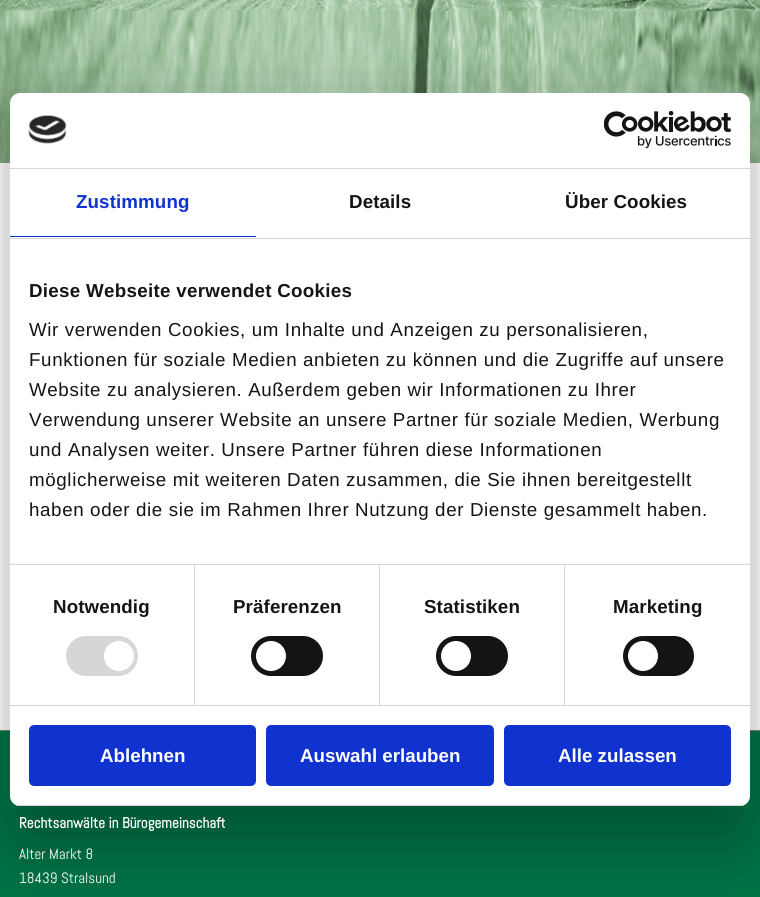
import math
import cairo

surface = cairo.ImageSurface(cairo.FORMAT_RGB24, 760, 897)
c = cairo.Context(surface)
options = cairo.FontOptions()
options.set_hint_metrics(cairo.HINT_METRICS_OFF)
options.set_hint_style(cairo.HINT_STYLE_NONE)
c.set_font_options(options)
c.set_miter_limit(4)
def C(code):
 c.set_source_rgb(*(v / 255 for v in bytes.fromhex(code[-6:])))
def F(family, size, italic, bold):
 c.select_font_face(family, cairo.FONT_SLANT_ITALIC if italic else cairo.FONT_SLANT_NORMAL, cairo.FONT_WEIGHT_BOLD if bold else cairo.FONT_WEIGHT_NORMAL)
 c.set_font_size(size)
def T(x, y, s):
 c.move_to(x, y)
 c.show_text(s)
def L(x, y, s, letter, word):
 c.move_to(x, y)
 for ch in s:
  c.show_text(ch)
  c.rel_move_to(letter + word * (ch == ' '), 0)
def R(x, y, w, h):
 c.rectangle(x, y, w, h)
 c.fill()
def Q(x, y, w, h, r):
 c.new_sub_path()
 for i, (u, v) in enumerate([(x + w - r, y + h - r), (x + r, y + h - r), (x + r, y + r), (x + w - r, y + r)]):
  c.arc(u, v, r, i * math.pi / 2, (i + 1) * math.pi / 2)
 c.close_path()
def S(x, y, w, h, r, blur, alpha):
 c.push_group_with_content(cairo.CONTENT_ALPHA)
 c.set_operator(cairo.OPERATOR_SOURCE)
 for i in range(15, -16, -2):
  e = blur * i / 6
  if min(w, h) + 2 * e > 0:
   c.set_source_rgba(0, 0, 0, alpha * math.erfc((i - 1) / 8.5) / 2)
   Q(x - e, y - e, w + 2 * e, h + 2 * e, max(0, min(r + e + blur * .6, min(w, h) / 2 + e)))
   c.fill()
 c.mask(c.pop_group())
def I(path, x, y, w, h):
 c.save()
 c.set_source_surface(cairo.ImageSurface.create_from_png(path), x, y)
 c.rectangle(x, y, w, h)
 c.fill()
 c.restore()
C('ffffff')
c.paint()
I('3.png',0,0,760,163)
C('007546')
R(0,731,760,166)
C('7e7e7e')
R(0,730,760,1)
C('000000')
S(10,133,740,713,10,42.5,.3)
C('ffffff')
Q(10,93,740,713,10)
c.fill()
C('d6d6d6')
R(10,168,740,1)
I('1.png',28,115,39,29)
I('2.png',604,111,127,38)
R(10,238,740,1)
C('1032cf')
R(10,236,246,1)
F('Liberation Sans',18.75,0,1)
L(76,208,'Zustimmung',.1,0)
C('141414')
L(349,208,'Details',.1,0)
L(565,208,'Über Cookies',.1,0)
C('d6d6d6')
R(10,564,740,1)
C('141414')
L(29,297,'Diese Webseite verwendet Cookies',.3,0)
F('Liberation Sans',18.75,0,0)
L(29,336,'Wir verwenden Cookies, um Inhalte und Anzeigen zu personalisieren,',.62,0)
L(29,366,'Funktionen für soziale Medien anbieten zu können und die Zugriffe auf unsere',.62,0)
L(29,396,'Website zu analysieren. Außerdem geben wir Informationen zu Ihrer',.62,0)
L(29,426,'Verwendung unserer Website an unsere Partner für soziale Medien, Werbung',.62,0)
L(29,456,'und Analysen weiter. Unsere Partner führen diese Informationen',.62,0)
L(29,486,'möglicherweise mit weiteren Daten zusammen, die Sie ihnen bereitgestellt',.62,0)
L(29,516,'haben oder die sie im Rahmen Ihrer Nutzung der Dienste gesammelt haben.',.62,0)
C('d6d6d6')
R(10,705,740,1)
R(194,565,1,140)
F('Liberation Sans',18.75,0,1)
C('141414')
L(53,613,'Notwendig',.1,0)
C('d6d6d6')
Q(66,636,72,40,20)
c.fill()
C('ffffff')
c.arc(119,656,15,0,2 * math.pi)
c.fill()
C('d6d6d6')
R(379,565,1,140)
C('141414')
L(233,613,'Präferenzen',.1,0)
Q(251,636,72,40,20)
c.fill()
C('ffffff')
c.arc(271,656,15,0,2 * math.pi)
c.fill()
C('d6d6d6')
R(564,565,1,140)
C('141414')
L(424,613,'Statistiken',.1,0)
Q(436,636,72,40,20)
c.fill()
C('ffffff')
c.arc(456,656,15,0,2 * math.pi)
c.fill()
C('141414')
L(613,613,'Marketing',.1,0)
Q(623,636,71,40,20)
c.fill()
C('ffffff')
c.arc(643,656,15,0,2 * math.pi)
c.fill()
c.save()
Q(10,93,740,713,10)
c.clip()
C('d6d6d6')
R(10,805,740,1)
c.restore()
C('1032cf')
Q(30.5,726.5,224,58,3.5)
c.fill_preserve()
c.set_line_width(3)
c.stroke()
C('ffffff')
T(100,762,'Ablehnen')
C('1032cf')
Q(267.5,726.5,225,58,3.5)
c.fill_preserve()
c.stroke()
C('ffffff')
T(300,762,'Auswahl erlauben')
C('1032cf')
Q(505.5,726.5,224,58,3.5)
c.fill_preserve()
c.stroke()
C('ffffff')
T(558,762,'Alle zulassen')
F('Abel',15,0,1)
T(19,828,'Rechtsanwälte in Bürogemeinschaft')
F('Abel',15,0,0)
T(19,859,'Alter Markt 8')
T(19,883,'18439 Stralsund')
surface.write_to_png('o.png')
